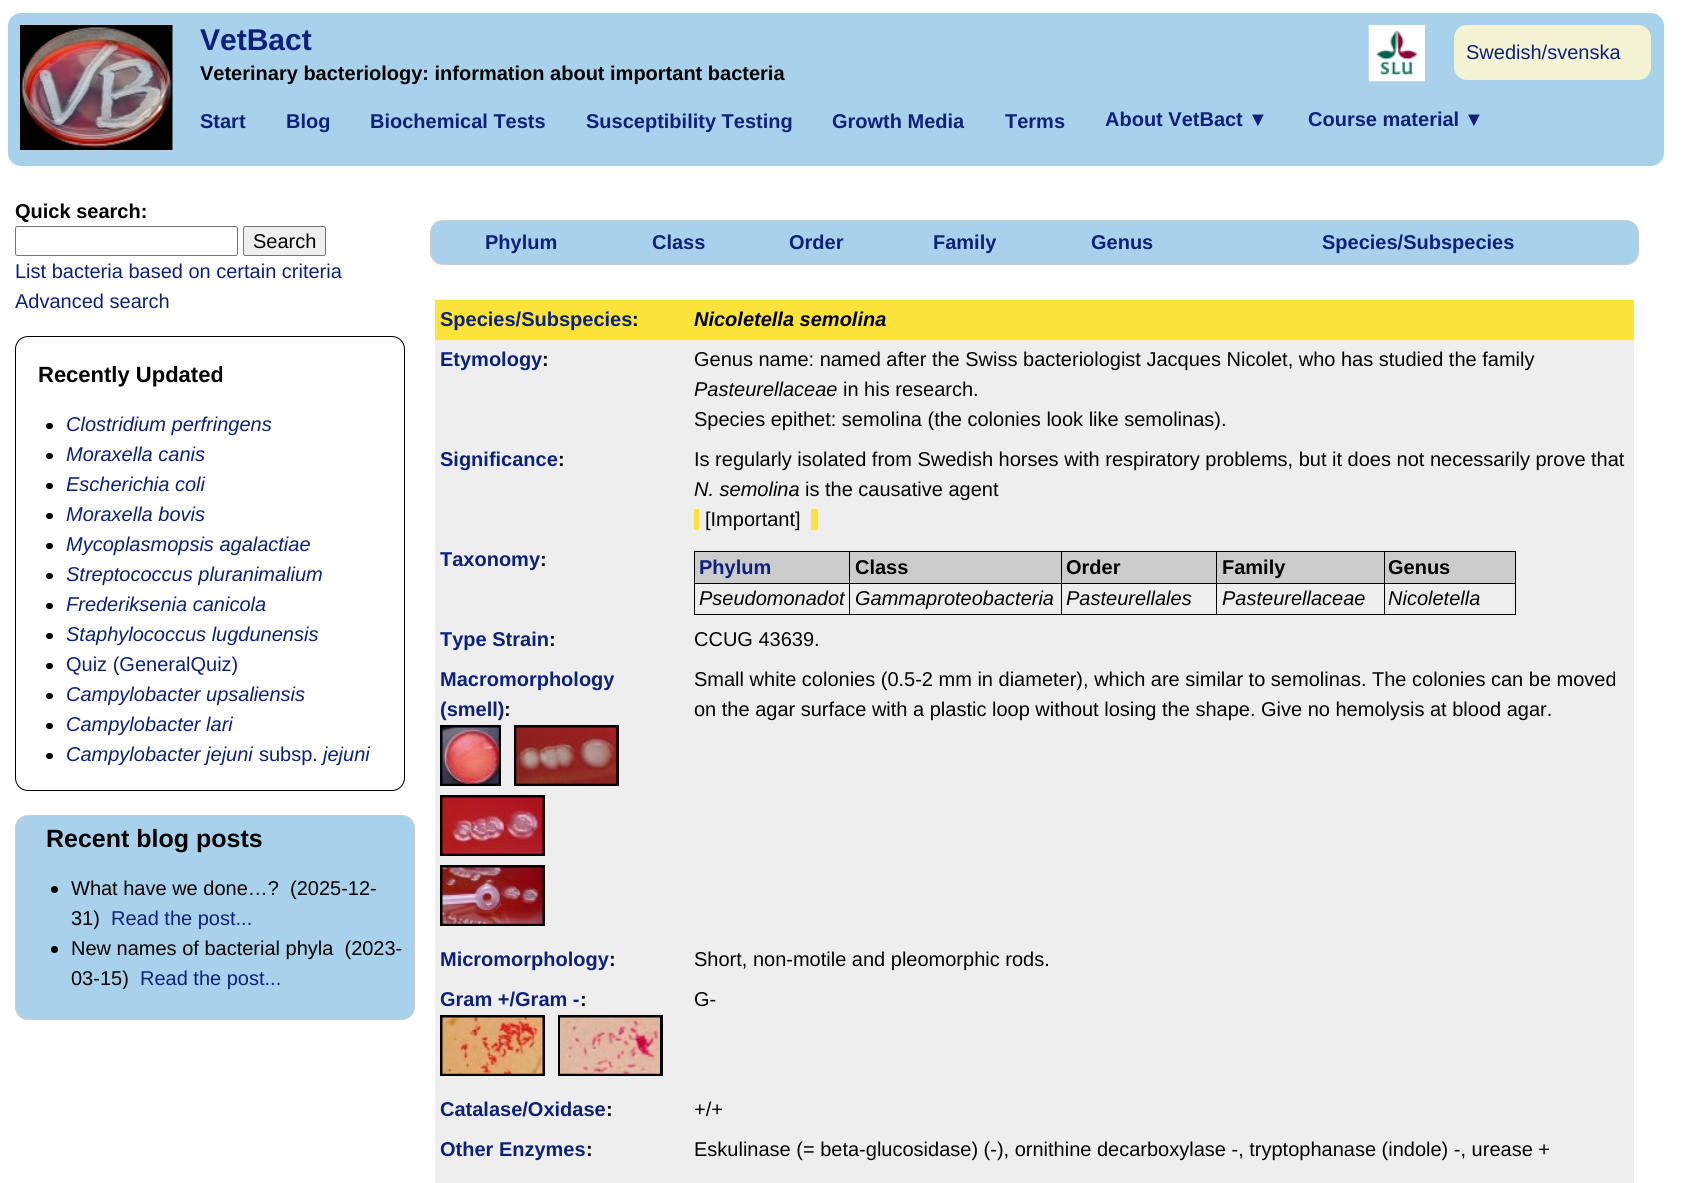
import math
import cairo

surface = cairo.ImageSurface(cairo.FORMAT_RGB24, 1686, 1183)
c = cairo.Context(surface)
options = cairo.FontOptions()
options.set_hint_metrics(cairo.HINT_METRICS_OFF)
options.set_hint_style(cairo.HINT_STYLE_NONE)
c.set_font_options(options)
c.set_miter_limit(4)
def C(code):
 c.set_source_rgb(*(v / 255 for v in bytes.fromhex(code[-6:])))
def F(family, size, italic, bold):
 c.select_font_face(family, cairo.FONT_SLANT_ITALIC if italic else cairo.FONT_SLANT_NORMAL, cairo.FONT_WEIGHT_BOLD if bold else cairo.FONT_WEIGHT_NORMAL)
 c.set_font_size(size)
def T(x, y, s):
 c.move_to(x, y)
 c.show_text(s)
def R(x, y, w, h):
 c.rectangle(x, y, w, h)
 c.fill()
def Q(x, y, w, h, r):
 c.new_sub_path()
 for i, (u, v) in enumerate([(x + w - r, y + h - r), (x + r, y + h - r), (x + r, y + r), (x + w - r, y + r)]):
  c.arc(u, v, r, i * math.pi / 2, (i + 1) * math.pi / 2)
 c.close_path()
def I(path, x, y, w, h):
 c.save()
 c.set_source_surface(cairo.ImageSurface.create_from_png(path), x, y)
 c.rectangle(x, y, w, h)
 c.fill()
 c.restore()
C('ffffff')
c.paint()
C('a8d2ec')
Q(8,13,1656,153,13)
c.fill()
I('1.png',20,25,153,125)
F('Liberation Sans',30,0,1)
C('0c217a')
T(200,50,'VetBact')
I('2.png',1368,25,57,57)
C('f4f4d5')
Q(1454,25,197,55,13)
c.fill()
F('Liberation Sans',20,0,0)
C('0c217a')
T(1466,59,'Swedish/svenska')
F('Liberation Sans',20,0,1)
C('000000')
T(200,80,'Veterinary bacteriology: information about important bacteria')
C('0c217a')
T(200,128,'Start')
T(286,128,'Blog')
T(370,128,'Biochemical Tests')
T(586,128,'Susceptibility Testing')
T(832,128,'Growth Media')
T(1005,128,'Terms')
T(1105,126,'About VetBact')
F('Liberation Sans',20,1,1)
T(1248,126,'▼')
F('Liberation Sans',20,0,1)
T(1308,126,'Course material')
F('Liberation Sans',20,1,1)
T(1464,126,'▼')
F('Liberation Sans',20,0,1)
C('000000')
T(15,218,'Quick search:')
Q(15.5,226.5,222,29,2)
C('767676')
c.set_line_width(1)
c.stroke()
C('efefef')
Q(243.5,226.5,82,29,2)
c.fill_preserve()
C('767676')
c.stroke()
F('Liberation Sans',20,0,0)
C('000000')
T(253,248,'Search')
C('0c217a')
T(15,278,'List bacteria based on certain criteria')
T(15,308,'Advanced search')
Q(15.5,336.5,389,454,12.5)
C('000000')
c.stroke()
F('Liberation Sans',22,0,1)
T(38,382,'Recently Updated')
Q(46,423,7,6,3)
c.fill()
F('Liberation Sans',20,1,0)
C('0c217a')
T(66,431,'Clostridium perfringens')
C('000000')
Q(46,453,7,6,3)
c.fill()
C('0c217a')
T(66,461,'Moraxella canis')
C('000000')
Q(46,483,7,6,3)
c.fill()
C('0c217a')
T(66,491,'Escherichia coli')
C('000000')
Q(46,513,7,6,3)
c.fill()
C('0c217a')
T(66,521,'Moraxella bovis')
C('000000')
Q(46,543,7,6,3)
c.fill()
C('0c217a')
T(66,551,'Mycoplasmopsis agalactiae')
C('000000')
Q(46,573,7,6,3)
c.fill()
C('0c217a')
T(66,581,'Streptococcus pluranimalium')
C('000000')
Q(46,603,7,6,3)
c.fill()
C('0c217a')
T(66,611,'Frederiksenia canicola')
C('000000')
Q(46,633,7,6,3)
c.fill()
C('0c217a')
T(66,641,'Staphylococcus lugdunensis')
C('000000')
Q(46,663,7,6,3)
c.fill()
F('Liberation Sans',20,0,0)
C('0c217a')
T(66,671,'Quiz (GeneralQuiz)')
C('000000')
Q(46,693,7,6,3)
c.fill()
F('Liberation Sans',20,1,0)
C('0c217a')
T(66,701,'Campylobacter upsaliensis')
C('000000')
Q(46,723,7,6,3)
c.fill()
C('0c217a')
T(66,731,'Campylobacter lari')
C('000000')
Q(46,753,7,6,3)
c.fill()
C('0c217a')
T(66,761,'Campylobacter jejuni')
F('Liberation Sans',20,0,0)
T(259,761,'subsp.')
F('Liberation Sans',20,1,0)
T(323,761,'jejuni')
C('a8d2ec')
Q(15.5,815.5,399,204,12.5)
c.fill_preserve()
C('cccccc')
c.stroke()
F('Liberation Sans',25,0,1)
C('000000')
T(46,847,'Recent blog posts')
c.new_path()
c.arc(54.5,889.5,3.5,0,2 * math.pi)
c.fill()
F('Liberation Sans',20,0,0)
T(71,895,'What have we done…?  (2025-12-')
T(71,925,'31)')
C('0c217a')
T(111,925,'Read the post...')
C('000000')
c.new_path()
c.arc(54.5,949.5,3.5,0,2 * math.pi)
c.fill()
T(71,955,'New names of bacterial phyla  (2023-')
T(71,985,'03-15)')
C('0c217a')
T(140,985,'Read the post...')
C('a8d2ec')
Q(430.5,220.5,1208,44,12.5)
c.fill_preserve()
C('cccccc')
c.stroke()
F('Liberation Sans',20,0,1)
C('0c217a')
T(485,249,'Phylum')
T(652,249,'Class')
T(789,249,'Order')
T(933,249,'Family')
T(1091,249,'Genus')
T(1322,249,'Species/Subspecies')
C('fbe339')
R(435,300,1199,40)
C('0c217a')
T(440,326,'Species/Subspecies')
C('000000')
T(632,326,':')
F('Liberation Sans',20,1,1)
T(694,326,'Nicoletella semolina')
C('eeeeee')
R(435,340,1199,843)
F('Liberation Sans',20,0,1)
C('0c217a')
T(440,366,'Etymology')
C('000000')
T(542,366,':')
F('Liberation Sans',20,0,0)
T(694,366,'Genus name: named after the Swiss bacteriologist Jacques Nicolet, who has studied the family')
F('Liberation Sans',20,1,0)
T(694,396,'Pasteurellaceae')
F('Liberation Sans',20,0,0)
T(843,396,'in his research.')
T(694,426,'Species epithet: semolina (the colonies look like semolinas).')
F('Liberation Sans',20,0,1)
C('0c217a')
T(440,466,'Significance')
C('000000')
T(558,466,':')
F('Liberation Sans',20,0,0)
T(694,466,'Is regularly isolated from Swedish horses with respiratory problems, but it does not necessarily prove that')
F('Liberation Sans',20,1,0)
T(694,496,'N. semolina')
F('Liberation Sans',20,0,0)
T(805,496,'is the causative agent')
C('fbe339')
R(694,509,5,21)
C('000000')
T(705,526,'[Important]')
C('fbe339')
R(811,509,7,21)
F('Liberation Sans',20,0,1)
C('0c217a')
T(440,566,'Taxonomy')
C('000000')
T(540,566,':')
C('cccccc')
R(695,552,154,31)
c.rectangle(694.5,551.5,165,32)
C('000000')
c.stroke()
C('0c217a')
T(699,574,'Phylum')
C('000000')
R(694,614,690,1)
R(694,584,1,31)
F('Liberation Sans',20,1,0)
T(699,605,'Pseudomonadot')
C('cccccc')
R(850,552,211,31)
c.rectangle(849.5,551.5,221,32)
C('000000')
c.stroke()
F('Liberation Sans',20,0,1)
T(855,574,'Class')
R(849,584,1,31)
F('Liberation Sans',20,1,0)
T(855,605,'Gammaproteobacteria')
C('cccccc')
R(1062,552,154,31)
c.rectangle(1061.5,551.5,164,32)
C('000000')
c.stroke()
F('Liberation Sans',20,0,1)
T(1066,574,'Order')
R(1061,584,1,31)
F('Liberation Sans',20,1,0)
T(1066,605,'Pasteurellales')
C('cccccc')
R(1217,552,167,31)
c.rectangle(1216.5,551.5,177,32)
C('000000')
c.stroke()
F('Liberation Sans',20,0,1)
T(1222,574,'Family')
R(1216,584,1,31)
F('Liberation Sans',20,1,0)
T(1222,605,'Pasteurellaceae')
C('cccccc')
c.rectangle(1384.5,551.5,131,32)
c.fill_preserve()
C('000000')
c.stroke()
F('Liberation Sans',20,0,1)
T(1388,574,'Genus')
R(1515,584,1,31)
R(1384,614,132,1)
R(1384,584,1,31)
F('Liberation Sans',20,1,0)
T(1388,605,'Nicoletella')
F('Liberation Sans',20,0,1)
C('0c217a')
T(440,646,'Type Strain')
C('000000')
T(549,646,':')
F('Liberation Sans',20,0,0)
T(694,646,'CCUG 43639.')
F('Liberation Sans',20,0,1)
C('0c217a')
T(440,686,'Macromorphology')
T(440,716,'(smell)')
C('000000')
T(504,716,':')
c.rectangle(441.5,726.5,58,58)
c.set_line_width(3)
c.stroke()
c.rectangle(515.5,726.5,102,58)
c.stroke()
I('3.png',442,727,57,57)
I('4.png',516,727,101,57)
c.rectangle(441.5,796.5,102,58)
c.stroke()
I('5.png',442,797,101,57)
c.rectangle(441.5,866.5,102,58)
c.stroke()
I('6.png',442,867,101,57)
F('Liberation Sans',20,0,0)
T(694,686,'Small white colonies (0.5-2 mm in diameter), which are similar to semolinas. The colonies can be moved')
T(694,716,'on the agar surface with a plastic loop without losing the shape. Give no hemolysis at blood agar.')
F('Liberation Sans',20,0,1)
C('0c217a')
T(440,966,'Micromorphology')
C('000000')
T(609,966,':')
F('Liberation Sans',20,0,0)
T(694,966,'Short, non-motile and pleomorphic rods.')
F('Liberation Sans',20,0,1)
C('0c217a')
T(440,1006,'Gram +/Gram -')
C('000000')
T(580,1006,':')
c.rectangle(441.5,1016.5,102,58)
c.stroke()
c.rectangle(559.5,1016.5,102,58)
c.stroke()
I('7.png',442,1017,101,57)
I('8.png',560,1017,100,57)
F('Liberation Sans',20,0,0)
T(694,1006,'G-')
F('Liberation Sans',20,0,1)
C('0c217a')
T(440,1116,'Catalase/Oxidase')
C('000000')
T(606,1116,':')
F('Liberation Sans',20,0,0)
T(694,1116,'+/+')
F('Liberation Sans',20,0,1)
C('0c217a')
T(440,1156,'Other Enzymes')
C('000000')
T(586,1156,':')
F('Liberation Sans',20,0,0)
T(694,1156,'Eskulinase (= beta-glucosidase) (-), ornithine decarboxylase -, tryptophanase (indole) -, urease +')
surface.write_to_png('o.png')
